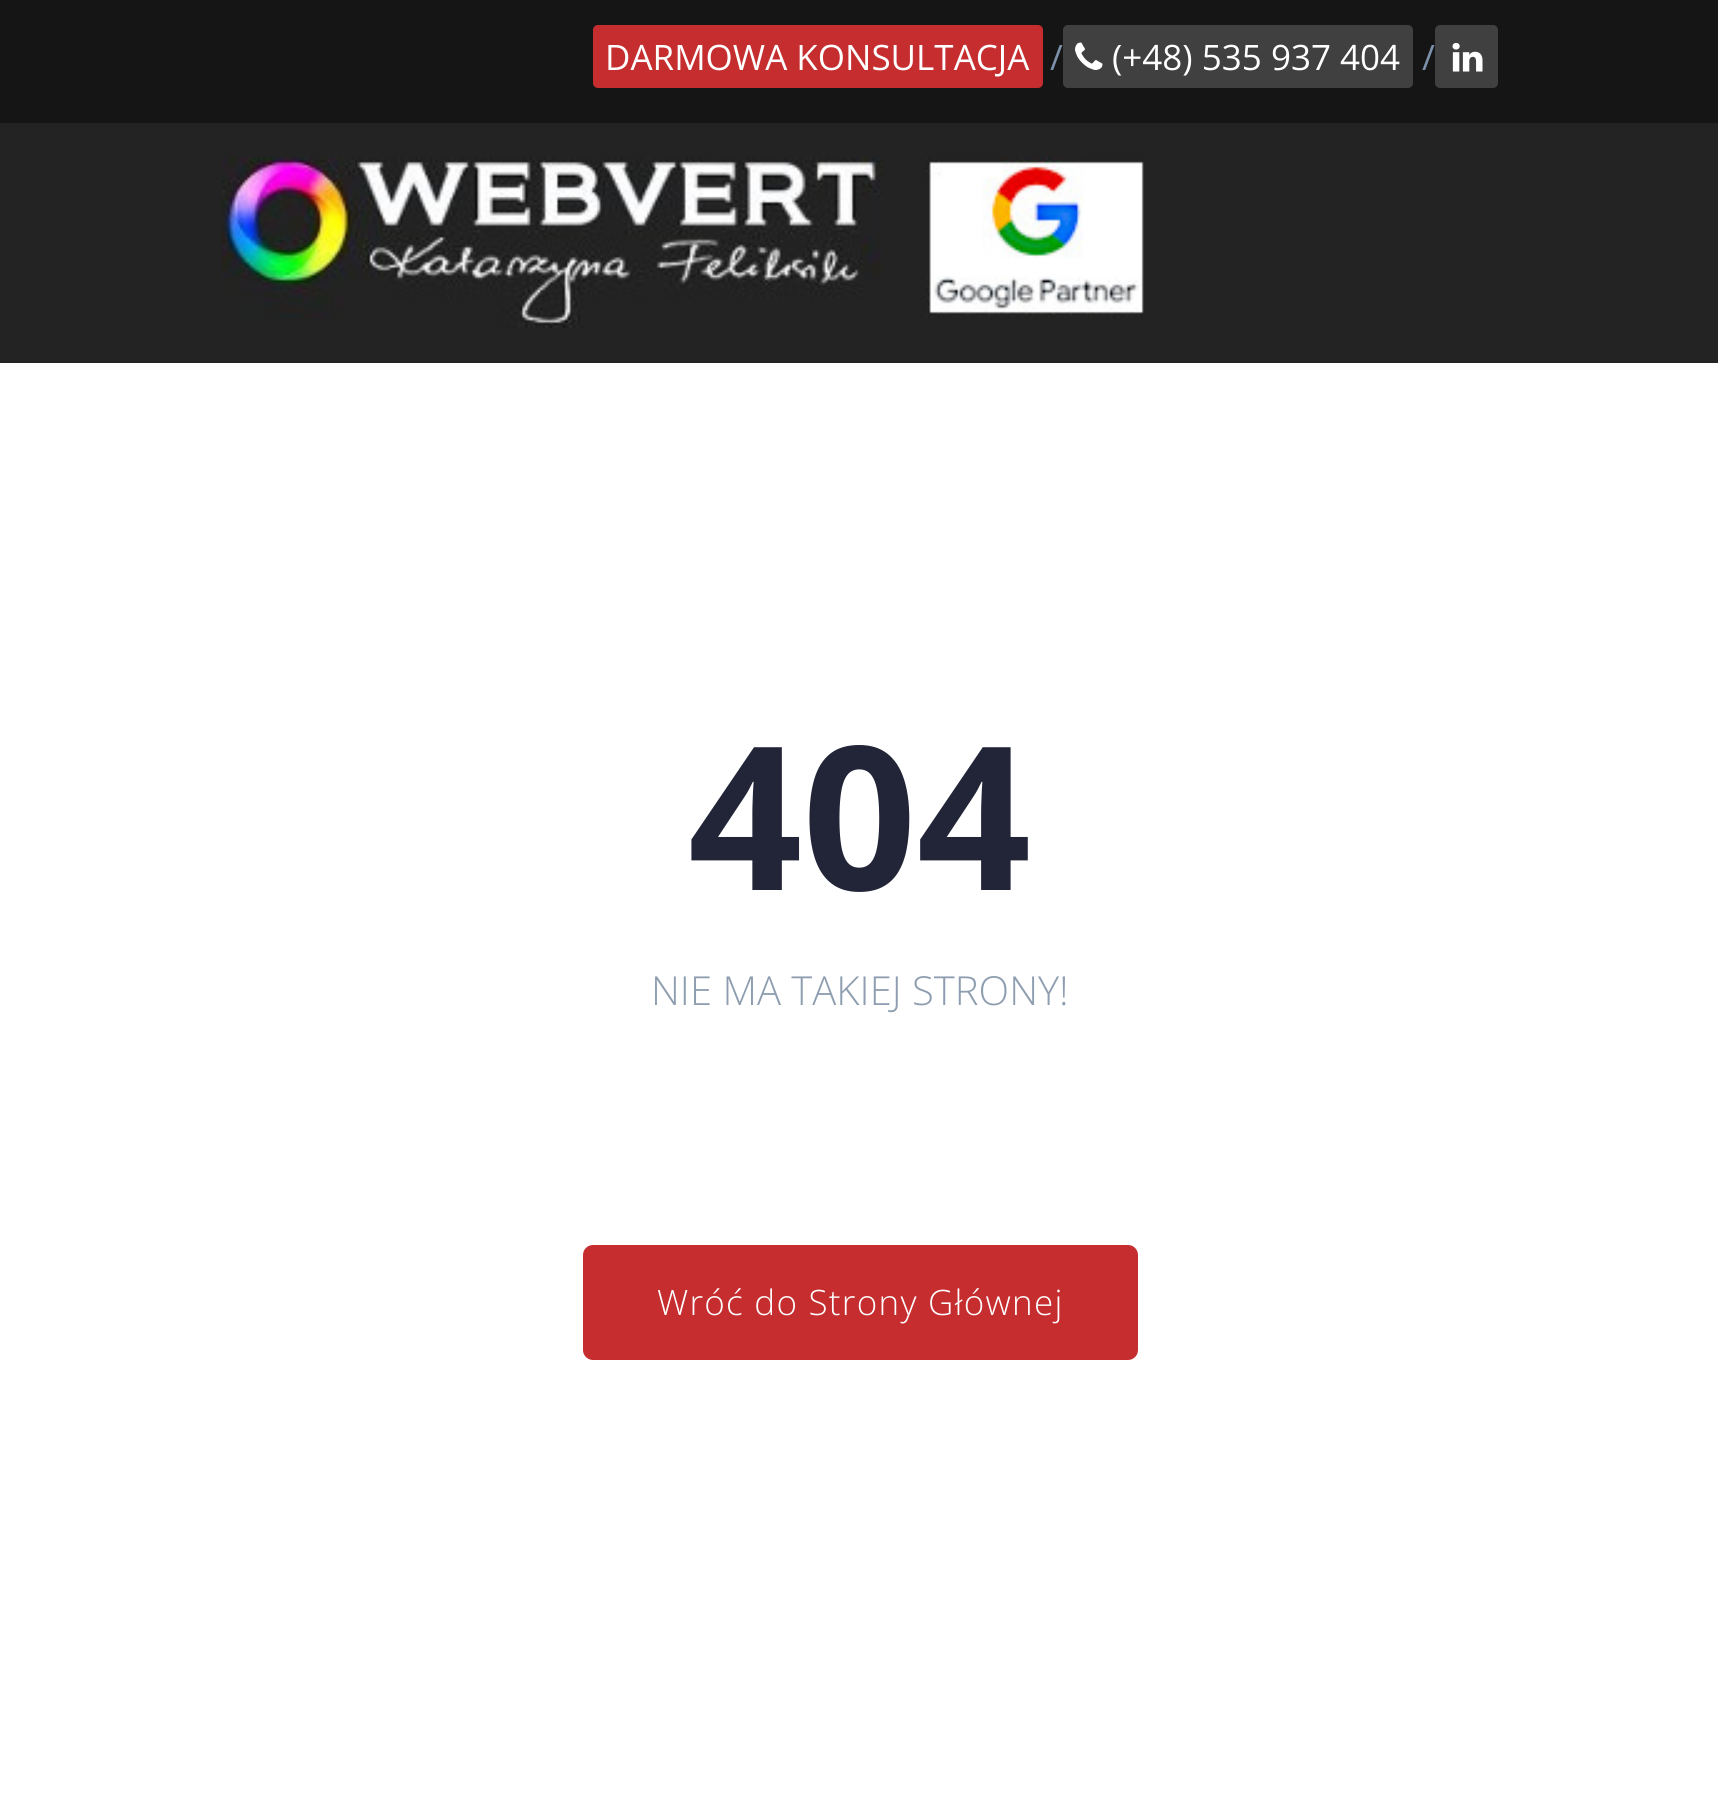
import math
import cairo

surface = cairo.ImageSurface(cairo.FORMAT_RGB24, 1718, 1796)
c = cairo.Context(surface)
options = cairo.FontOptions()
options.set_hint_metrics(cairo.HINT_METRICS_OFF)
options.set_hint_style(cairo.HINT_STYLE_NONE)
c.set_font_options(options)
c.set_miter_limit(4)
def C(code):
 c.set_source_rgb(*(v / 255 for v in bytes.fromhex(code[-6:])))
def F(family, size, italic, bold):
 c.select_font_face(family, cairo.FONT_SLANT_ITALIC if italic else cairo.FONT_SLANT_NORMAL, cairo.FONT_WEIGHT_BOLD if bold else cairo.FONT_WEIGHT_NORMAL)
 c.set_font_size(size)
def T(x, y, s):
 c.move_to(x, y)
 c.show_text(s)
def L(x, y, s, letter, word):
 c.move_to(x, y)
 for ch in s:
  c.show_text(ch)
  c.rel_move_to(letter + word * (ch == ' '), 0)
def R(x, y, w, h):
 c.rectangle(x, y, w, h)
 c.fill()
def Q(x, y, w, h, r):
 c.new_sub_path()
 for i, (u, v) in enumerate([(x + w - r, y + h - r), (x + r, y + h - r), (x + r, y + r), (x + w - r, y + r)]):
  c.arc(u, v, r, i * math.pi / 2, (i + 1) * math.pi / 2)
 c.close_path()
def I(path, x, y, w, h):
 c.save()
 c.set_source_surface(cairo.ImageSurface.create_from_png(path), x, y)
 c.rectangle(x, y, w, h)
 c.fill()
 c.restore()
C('ffffff')
c.paint()
C('151515')
R(0,0,1718,123)
C('222222')
R(0,123,1718,2)
C('c52d2f')
Q(593,25,450,63,5)
c.fill()
F('Open Sans',35,0,0)
C('ffffff')
T(605,70,'DARMOWA KONSULTACJA')
C('7d91aa')
T(1050,70,'/')
C('404040')
Q(1063,25,350,63,5)
c.fill()
I('1.png',1075,42,28,28)
C('ffffff')
T(1112,70,'(+48) 535 937 404')
C('7d91aa')
T(1422,70,'/')
C('404040')
Q(1435,25,63,63,5)
c.fill()
I('2.png',1452,42,31,30)
C('232323')
R(0,125,1718,238)
I('3.png',222,157,922,171)
F('Open Sans',200,0,1)
C('222538')
T(688,890,'404')
F('Open Sans Light',40,0,0)
C('8e9eb0')
T(651,1005,'NIE MA TAKIEJ STRONY!')
C('c52d2f')
Q(583,1245,555,115,10)
c.fill()
F('Open Sans Light',35,0,0)
C('ffffff')
L(657,1315,'Wróć do Strony Głównej',1.25,0)
surface.write_to_png('o.png')
